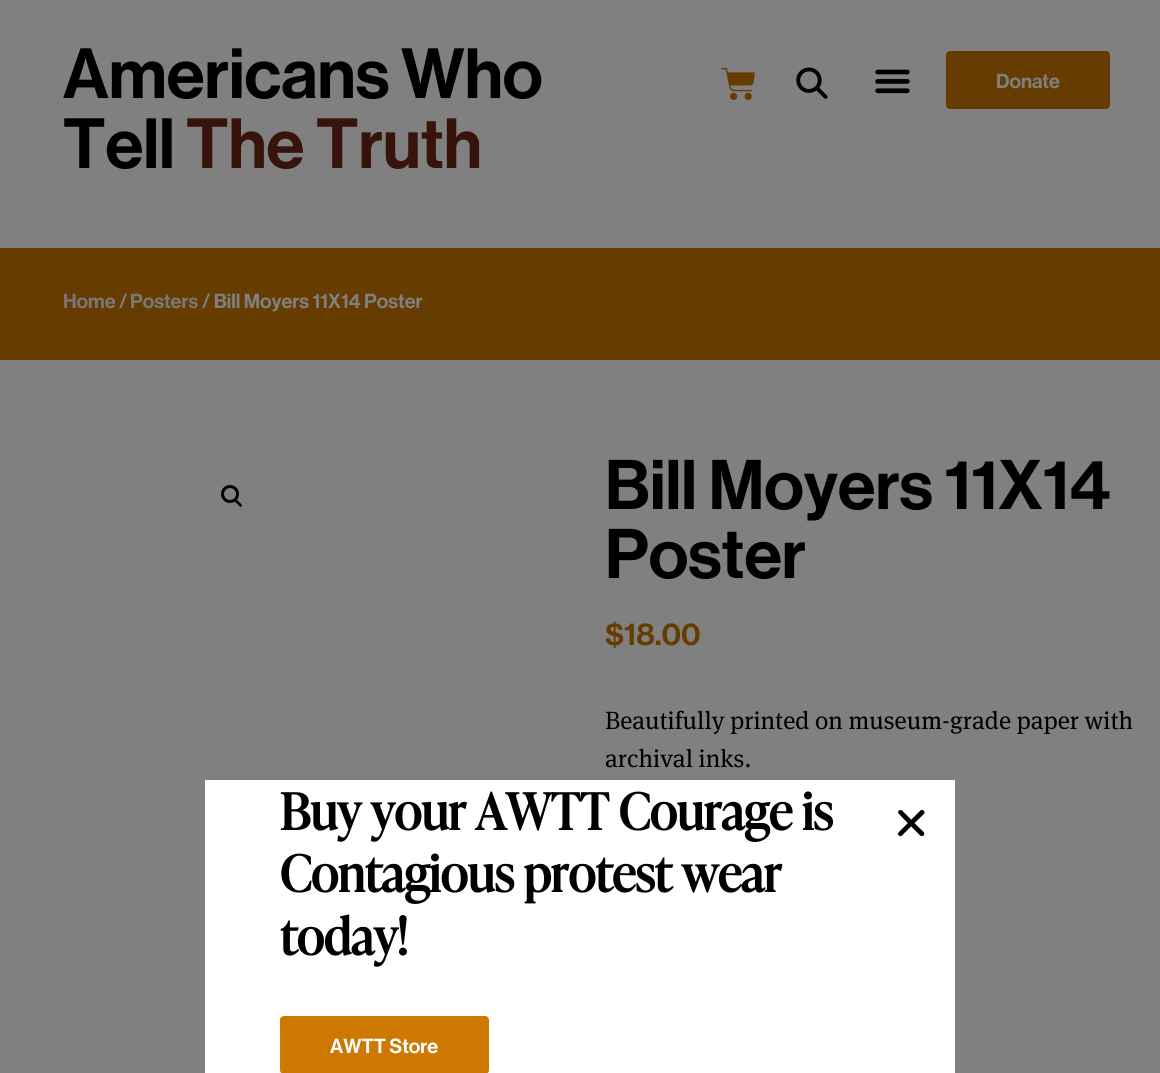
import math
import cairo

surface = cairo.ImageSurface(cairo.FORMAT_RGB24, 1160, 1073)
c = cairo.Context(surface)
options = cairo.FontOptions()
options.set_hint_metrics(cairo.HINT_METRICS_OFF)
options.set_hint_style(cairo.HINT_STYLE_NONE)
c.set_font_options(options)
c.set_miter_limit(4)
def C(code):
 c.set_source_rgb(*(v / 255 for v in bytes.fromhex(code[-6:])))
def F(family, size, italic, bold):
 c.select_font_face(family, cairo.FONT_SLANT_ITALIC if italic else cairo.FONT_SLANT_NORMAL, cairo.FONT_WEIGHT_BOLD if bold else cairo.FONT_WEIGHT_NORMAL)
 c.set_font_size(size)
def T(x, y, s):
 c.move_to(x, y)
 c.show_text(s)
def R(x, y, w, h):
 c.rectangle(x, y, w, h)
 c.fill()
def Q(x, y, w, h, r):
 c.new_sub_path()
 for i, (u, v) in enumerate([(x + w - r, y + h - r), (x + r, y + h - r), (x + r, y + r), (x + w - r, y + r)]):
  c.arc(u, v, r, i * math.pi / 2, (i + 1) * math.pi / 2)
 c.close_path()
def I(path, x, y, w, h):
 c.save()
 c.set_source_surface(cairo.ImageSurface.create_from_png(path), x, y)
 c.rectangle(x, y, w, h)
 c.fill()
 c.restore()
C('808080')
c.paint()
F('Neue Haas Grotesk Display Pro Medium',69.5,0,0)
C('000000')
T(63,98,'Americans Who')
T(63,168,'Tell')
C('36140b')
T(186,168,'The Truth')
I('1.png',721,68,34,32)
I('2.png',796,67,32,32)
I('3.png',875,69,35,25)
C('673c01')
Q(946,51,164,58,4)
c.fill()
F('Neue Haas Grotesk Display Pro Medium',20,0,0)
C('808080')
T(996,88,'Donate')
C('673c01')
R(0,248,1160,112)
C('787878')
T(63,308,'Home')
C('808080')
T(119,308,'/')
C('787878')
T(130,308,'Posters')
C('808080')
T(202,308,'/ Bill Moyers 11X14 Poster')
c.new_path()
c.arc(230,494,7.5,0,2 * math.pi)
C('000000')
c.set_line_width(3)
c.stroke()
c.new_path()
c.move_to(234.5,499.5)
c.curve_to(236,498,238.5,501.5,239,502)
c.curve_to(240,503,243,505,241.5,506.5)
c.curve_to(240.5,508,238,504.5,237.5,504)
c.curve_to(236.5,503,233,501,234.5,499.5)
c.close_path()
c.fill()
F('Neue Haas Grotesk Display Pro Medium',68.75,0,0)
T(605,509,'Bill Moyers 11X14')
T(605,578,'Poster')
F('Neue Haas Grotesk Display Pro Medium',31,0,0)
C('673c01')
T(605,645,'$18.00')
F('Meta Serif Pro',25,0,0)
C('000000')
T(605,729,'Beautifully printed on museum-grade paper with')
T(605,767,'archival inks.')
C('ffffff')
R(205,780,750,293)
F('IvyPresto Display',50,0,1)
C('000000')
T(280,830,'Buy your AWTT Courage is')
T(280,892,'Contagious protest wear')
T(280,955,'today!')
C('cd7801')
Q(280,1016,209,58,4)
c.fill()
F('Neue Haas Grotesk Display Pro Medium',20,0,0)
C('ffffff')
T(330,1053,'AWTT Store')
I('4.png',898,809,27,28)
surface.write_to_png('o.png')
